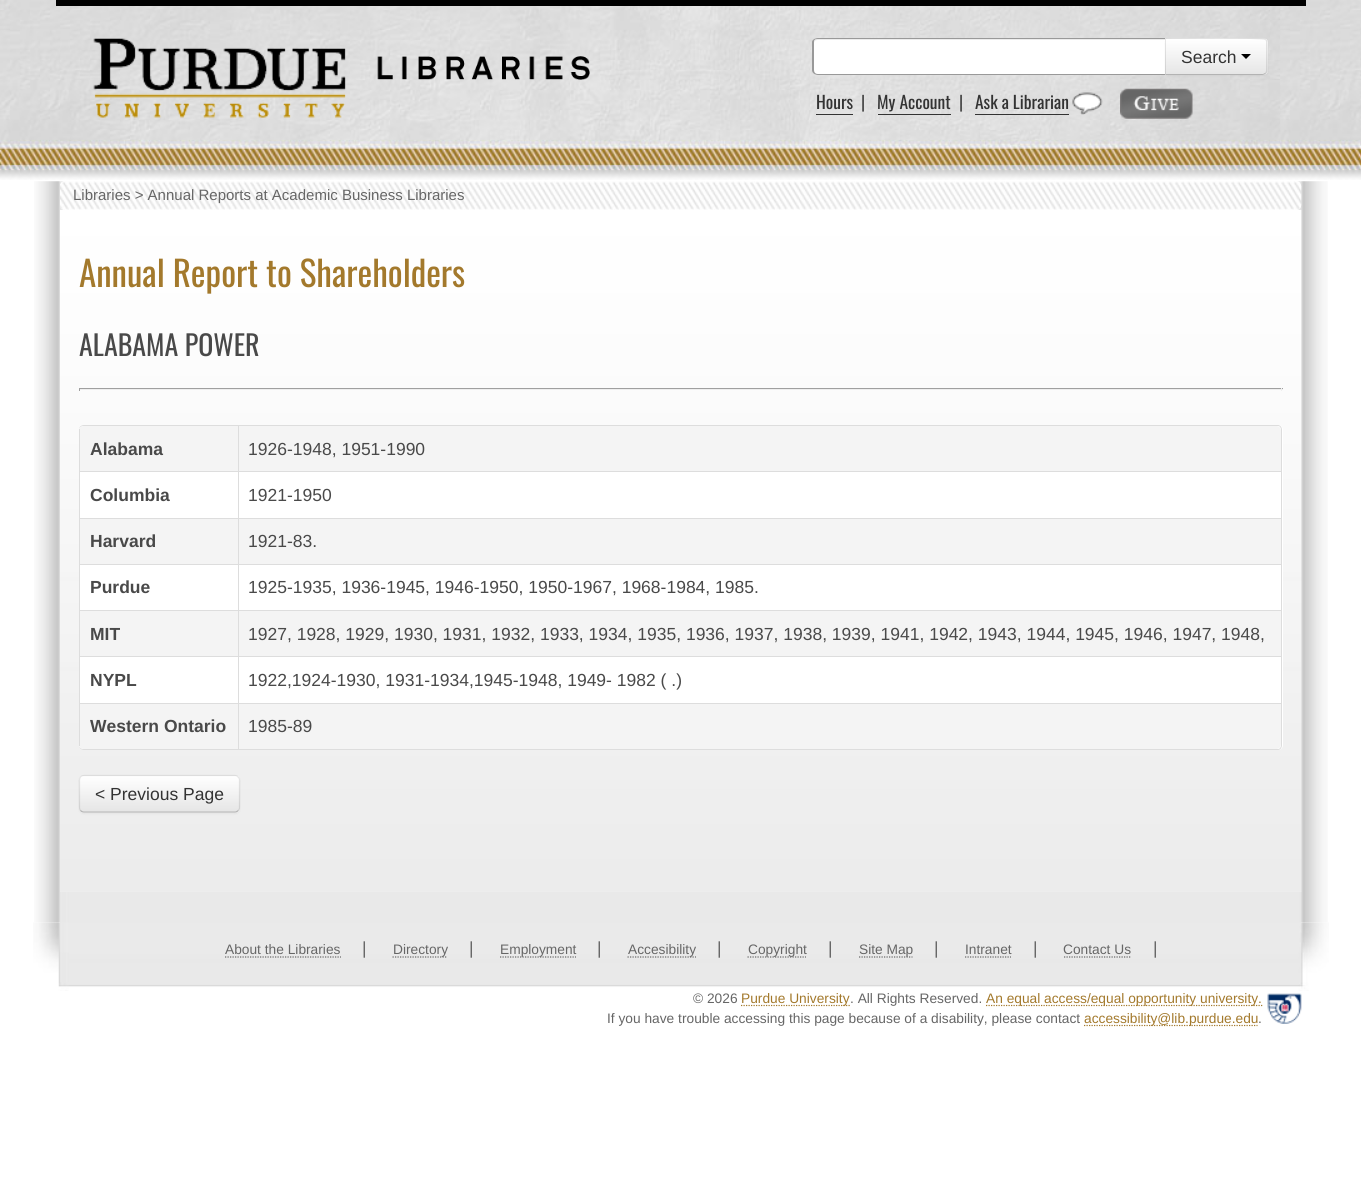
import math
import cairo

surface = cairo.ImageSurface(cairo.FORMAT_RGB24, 1361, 1177)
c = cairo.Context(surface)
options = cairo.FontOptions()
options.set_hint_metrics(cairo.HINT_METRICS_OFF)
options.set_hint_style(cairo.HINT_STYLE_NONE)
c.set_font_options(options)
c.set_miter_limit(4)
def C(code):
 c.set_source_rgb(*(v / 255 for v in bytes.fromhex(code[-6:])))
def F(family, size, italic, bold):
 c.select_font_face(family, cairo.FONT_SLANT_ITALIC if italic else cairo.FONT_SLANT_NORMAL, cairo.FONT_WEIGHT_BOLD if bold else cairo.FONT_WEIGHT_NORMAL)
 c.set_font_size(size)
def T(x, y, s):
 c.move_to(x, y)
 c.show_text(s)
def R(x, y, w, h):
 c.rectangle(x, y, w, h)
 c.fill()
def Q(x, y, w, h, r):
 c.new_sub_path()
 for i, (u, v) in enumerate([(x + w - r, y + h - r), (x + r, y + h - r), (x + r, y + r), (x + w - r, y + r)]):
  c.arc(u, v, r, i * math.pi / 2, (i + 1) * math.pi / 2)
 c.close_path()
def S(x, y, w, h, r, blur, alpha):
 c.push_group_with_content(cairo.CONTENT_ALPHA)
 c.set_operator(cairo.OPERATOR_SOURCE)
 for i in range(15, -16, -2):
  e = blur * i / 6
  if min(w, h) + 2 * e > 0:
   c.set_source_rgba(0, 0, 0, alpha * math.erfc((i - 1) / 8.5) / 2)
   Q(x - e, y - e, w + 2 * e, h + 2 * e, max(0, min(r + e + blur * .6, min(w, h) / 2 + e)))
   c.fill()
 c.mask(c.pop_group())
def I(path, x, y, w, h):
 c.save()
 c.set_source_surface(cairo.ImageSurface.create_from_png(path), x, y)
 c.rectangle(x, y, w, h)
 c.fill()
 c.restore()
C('ffffff')
c.paint()
I('1.png',0,0,1361,180)
C('000000')
R(56,0,1250,6)
I('2.png',93,38,253,80)
I('3.png',377,56,213,24)
C('ffffff')
c.new_path()
c.move_to(818,38)
c.line_to(1166,38)
c.line_to(1166,75)
c.line_to(818,75)
c.curve_to(815,75,813,73,813,70)
c.line_to(813,43)
c.curve_to(813,40,815,38,818,38)
c.close_path()
c.fill()
C('ececec')
c.new_path()
c.move_to(818,40)
c.line_to(1166,40)
c.line_to(1166,39)
c.line_to(818,39)
c.curve_to(815,39,814,41,814,44)
c.curve_to(814,42,815,40,818,40)
c.close_path()
c.fill()
C('999999')
c.set_fill_rule(cairo.FILL_RULE_EVEN_ODD)
c.new_path()
c.move_to(818,38)
c.line_to(1166,38)
c.line_to(1166,75)
c.line_to(818,75)
c.curve_to(815,75,812,73,812,70)
c.line_to(812,42)
c.curve_to(812,40,815,38,818,38)
c.close_path()
c.move_to(818,39)
c.line_to(1166,39)
c.line_to(1166,74)
c.line_to(818,74)
c.curve_to(815,74,814,72,814,70)
c.line_to(814,42)
c.curve_to(814,40,815,39,818,39)
c.close_path()
c.fill()
C('000000')
S(1165,39,103,37,5,1,.05)
C('f5f5f5')
c.new_path()
c.move_to(1165,38)
c.line_to(1263,38)
c.curve_to(1266,38,1268,40,1268,43)
c.line_to(1268,70)
c.curve_to(1268,73,1266,75,1263,75)
c.line_to(1165,75)
c.close_path()
c.fill()
c.save()
c.set_fill_rule(cairo.FILL_RULE_WINDING)
c.new_path()
c.move_to(1165,38)
c.line_to(1263,38)
c.curve_to(1266,38,1268,40,1268,43)
c.line_to(1268,70)
c.curve_to(1268,73,1266,75,1263,75)
c.line_to(1165,75)
c.close_path()
c.clip()
gradient = cairo.LinearGradient(1216,39,1216,74)
gradient.add_color_stop_rgba(0,1,1,1,1)
gradient.add_color_stop_rgba(1,0.902,0.902,0.902,1)
c.set_source(gradient)
R(1165,39,103,35)
c.restore()
c.set_source_rgba(0,0,0,0.1)
c.set_fill_rule(cairo.FILL_RULE_WINDING)
c.new_path()
c.move_to(1266,39)
c.curve_to(1265,38,1263,38,1262,38)
c.line_to(1166,38)
c.line_to(1166,39)
c.curve_to(1177,39,1263,38,1265,40)
c.close_path()
c.fill()
c.new_path()
c.move_to(1267.5,72)
c.line_to(1266,73.5)
c.line_to(1265,72.5)
c.curve_to(1266,72,1266,71,1266,70)
c.line_to(1266,42)
c.curve_to(1266,41,1266,40.5,1265,40)
c.line_to(1266,39)
c.line_to(1267.5,40.5)
c.close_path()
c.fill()
C('b3b3b3')
c.new_path()
c.move_to(1262,75)
c.curve_to(1264,75,1265,74,1266,74)
c.line_to(1265,73)
c.line_to(1263,74)
c.line_to(1166,74)
c.line_to(1165,75)
c.close_path()
c.fill()
c.set_source_rgba(0,0,0,0.1)
c.new_path()
c.move_to(1166,39)
c.line_to(1166.5,39)
c.line_to(1165.5,38)
c.line_to(1165,38)
c.line_to(1165,75)
c.line_to(1166,74)
c.close_path()
c.fill()
F('Liberation Sans',17.5,0,0)
C('333333')
T(1181,63,'Search')
C('000000')
c.new_path()
c.move_to(1241,54)
c.line_to(1251,54)
c.line_to(1246,59)
c.close_path()
c.fill()
F('Oswald',17.5,0,0)
C('333333')
T(816,109,'Hours')
R(816,114,37,1)
C('494949')
T(861,109,'|')
C('333333')
T(877,109,'My Account')
R(878,114,73,1)
C('494949')
T(959,109,'|')
C('333333')
T(975,109,'Ask a Librarian')
R(975,114,94,1)
I('4.png',1072,92,31,23)
I('5.png',1120,88,73,31)
I('6.png',34,181,1294,742)
C('ffffff')
Q(60,181,1241,29,5)
c.fill()
I('7.png',60,181,1242,29)
F('Liberation Sans',15,0,0)
C('666666')
T(73,200,'Libraries > Annual Reports at Academic Business Libraries')
C('e9e9e9')
R(60,922,1241,1)
I('8.png',60,210,1242,682)
F('Oswald',35,0,0)
C('a3792c')
T(79,287,'Annual Report to Shareholders')
F('Oswald',28,0,0)
C('494949')
T(79,356,'ALABAMA POWER')
C('9f9f9f')
R(79,388,1204,1)
C('eeeeee')
R(1281,388,1,3)
R(79,389,1204,1)
C('9f9f9f')
R(79,388,1,3)
C('ffffff')
Q(79,425,1204,325,5)
c.fill()
C('dddddd')
c.set_fill_rule(cairo.FILL_RULE_EVEN_ODD)
c.new_path()
c.move_to(84,425)
c.line_to(1278,425)
c.curve_to(1280,425,1282,427,1282,430)
c.line_to(1282,745)
c.curve_to(1282,748,1280,750,1278,750)
c.line_to(84,750)
c.curve_to(81,750,79,748,79,745)
c.line_to(79,430)
c.curve_to(79,427,81,425,84,425)
c.close_path()
c.move_to(84,426)
c.line_to(1278,426)
c.curve_to(1280,426,1281,428,1281,430)
c.line_to(1281,745)
c.curve_to(1281,747,1280,749,1278,749)
c.line_to(84,749)
c.curve_to(81,749,79,747,79,745)
c.line_to(79,430)
c.curve_to(79,428,81,426,84,426)
c.close_path()
c.fill()
C('f4f4f4')
c.new_path()
c.move_to(84,426)
c.line_to(238,426)
c.line_to(238,471)
c.line_to(79,471)
c.line_to(79,431)
c.curve_to(79,428,81,426,84,426)
c.close_path()
c.fill()
C('dddddd')
R(79,429,1,42)
F('Liberation Sans',17.5,0,1)
C('494949')
T(90,455,'Alabama')
C('f4f4f4')
c.new_path()
c.move_to(238,426)
c.line_to(1276,426)
c.curve_to(1279,426,1281,428,1281,431)
c.line_to(1281,471)
c.line_to(238,471)
c.close_path()
c.fill()
C('dddddd')
R(238,426,1,45)
F('Liberation Sans',17.5,0,0)
C('494949')
T(248,455,'1926-1948, 1951-1990')
C('dddddd')
R(79,471,1202,1)
R(79,471,1,47)
F('Liberation Sans',17.5,0,1)
C('494949')
T(90,501,'Columbia')
C('dddddd')
R(238,471,1,47)
F('Liberation Sans',17.5,0,0)
C('494949')
T(248,501,'1921-1950')
C('f4f4f4')
R(80,519,158,45)
C('dddddd')
R(79,518,1202,1)
R(79,518,1,46)
F('Liberation Sans',17.5,0,1)
C('494949')
T(90,547,'Harvard')
C('f4f4f4')
R(239,519,1042,45)
C('dddddd')
R(238,518,1,46)
F('Liberation Sans',17.5,0,0)
C('494949')
T(248,547,'1921-83.')
C('dddddd')
R(79,564,1202,1)
R(79,564,1,46)
F('Liberation Sans',17.5,0,1)
C('494949')
T(90,593,'Purdue')
C('dddddd')
R(238,564,1,46)
F('Liberation Sans',17.5,0,0)
C('494949')
T(248,593,'1925-1935, 1936-1945, 1946-1950, 1950-1967, 1968-1984, 1985.')
C('f4f4f4')
R(80,611,158,45)
C('dddddd')
R(79,610,1202,1)
R(79,610,1,46)
F('Liberation Sans',17.5,0,1)
C('494949')
T(90,640,'MIT')
C('f4f4f4')
R(239,611,1042,45)
C('dddddd')
R(238,610,1,46)
F('Liberation Sans',17.5,0,0)
C('494949')
T(248,640,'1927, 1928, 1929, 1930, 1931, 1932, 1933, 1934, 1935, 1936, 1937, 1938, 1939, 1941, 1942, 1943, 1944, 1945, 1946, 1947, 1948,')
C('dddddd')
R(79,656,1202,1)
R(79,656,1,47)
F('Liberation Sans',17.5,0,1)
C('494949')
T(90,686,'NYPL')
C('dddddd')
R(238,656,1,47)
F('Liberation Sans',17.5,0,0)
C('494949')
T(248,686,'1922,1924-1930, 1931-1934,1945-1948, 1949- 1982 ( .)')
C('f4f4f4')
c.new_path()
c.move_to(79,703)
c.line_to(238,703)
c.line_to(238,749)
c.line_to(84,749)
c.curve_to(81,749,79,747,79,744)
c.close_path()
c.fill()
C('dddddd')
R(79,703,159,1)
R(79,703,1,43)
F('Liberation Sans',17.5,0,1)
C('494949')
T(90,732,'Western Ontario')
C('f4f4f4')
c.new_path()
c.move_to(238,703)
c.line_to(1281,703)
c.line_to(1281,744)
c.curve_to(1281,747,1279,749,1276,749)
c.line_to(238,749)
c.close_path()
c.fill()
C('dddddd')
R(238,703,1043,1)
R(238,703,1,46)
F('Liberation Sans',17.5,0,0)
C('494949')
T(248,732,'1985-89')
C('000000')
S(79,776,161,38,5,1,.05)
C('f5f5f5')
Q(79,775,161,38,5)
c.fill()
c.save()
c.set_fill_rule(cairo.FILL_RULE_WINDING)
Q(79,775,161,38,5)
c.clip()
gradient = cairo.LinearGradient(159,776,159,811)
gradient.add_color_stop_rgba(0,1,1,1,1)
gradient.add_color_stop_rgba(1,0.902,0.902,0.902,1)
c.set_source(gradient)
R(79,776,161,35)
c.restore()
c.new_path()
c.move_to(238,810.5)
c.curve_to(237.5,811.5,236,812,235,812)
c.line_to(84,812)
c.curve_to(82.5,812,81.5,811.5,80.5,810.5)
C('b3b3b3')
c.set_line_width(1.2)
c.stroke()
c.new_path()
c.move_to(80.5,810.5)
c.curve_to(80,810,79.5,808.5,79.5,807.5)
c.line_to(79.5,780)
c.curve_to(79.5,779,80,777.5,80.5,777)
c.curve_to(81.5,776,82.5,775.5,84,775.5)
c.line_to(235,775.5)
c.curve_to(236,775.5,237.5,776,238,777)
c.curve_to(239,777.5,239.5,779,239.5,780)
c.line_to(239.5,807.5)
c.curve_to(239.5,808.5,239,810,238,810.5)
c.set_source_rgba(0,0,0,0.1)
c.stroke()
C('333333')
T(95,800,'< Previous Page')
I('9.png',33,922,1296,69)
F('Liberation Sans',13.75,0,0)
C('666666')
T(225,954,'About the Libraries')
c.new_path()
c.move_to(225,957)
c.line_to(341,957)
c.set_dash([1.25,1.25])
c.stroke()
F('Liberation Sans',17.5,0,0)
T(362,954,'|')
c.new_path()
c.move_to(392.5,957)
c.line_to(447.5,957)
c.stroke()
F('Liberation Sans',13.75,0,0)
T(393,954,'Directory')
F('Liberation Sans',17.5,0,0)
T(469,954,'|')
c.new_path()
c.move_to(500,957)
c.line_to(576,957)
c.stroke()
F('Liberation Sans',13.75,0,0)
T(500,954,'Employment')
F('Liberation Sans',17.5,0,0)
T(597,954,'|')
c.new_path()
c.move_to(627.5,957)
c.line_to(696,957)
c.stroke()
F('Liberation Sans',13.75,0,0)
T(628,954,'Accesibility')
F('Liberation Sans',17.5,0,0)
T(717,954,'|')
c.new_path()
c.move_to(747.5,957)
c.line_to(806,957)
c.stroke()
F('Liberation Sans',13.75,0,0)
T(748,954,'Copyright')
F('Liberation Sans',17.5,0,0)
T(828,954,'|')
c.new_path()
c.move_to(859,957)
c.line_to(912.5,957)
c.stroke()
F('Liberation Sans',13.75,0,0)
T(859,954,'Site Map')
F('Liberation Sans',17.5,0,0)
T(934,954,'|')
F('Liberation Sans',13.75,0,0)
T(965,954,'Intranet')
c.new_path()
c.move_to(965,957)
c.line_to(1011,957)
c.stroke()
F('Liberation Sans',17.5,0,0)
T(1033,954,'|')
F('Liberation Sans',13.75,0,0)
T(1063,954,'Contact Us')
c.new_path()
c.move_to(1064,957)
c.line_to(1131,957)
c.stroke()
F('Liberation Sans',17.5,0,0)
T(1153,954,'|')
F('Liberation Sans',13.75,0,0)
T(693,1003,'© 2026')
c.new_path()
c.move_to(741,1005.5)
c.line_to(850,1005.5)
C('a3792c')
c.stroke()
T(741,1003,'Purdue University')
C('666666')
T(850,1003,'. All Rights Reserved.')
c.new_path()
c.move_to(986,1005.5)
c.line_to(1262.5,1005.5)
C('a3792c')
c.stroke()
T(986,1003,'An equal access/equal opportunity university.')
C('666666')
T(607,1023,'If you have trouble accessing this page because of a disability, please contact')
c.new_path()
c.move_to(1084,1025.5)
c.line_to(1257.5,1025.5)
C('a3792c')
c.stroke()
T(1084,1023,'accessibility@lib.purdue.edu')
C('666666')
T(1258,1023,'.')
I('10.png',1267,993,35,31)
surface.write_to_png('o.png')
